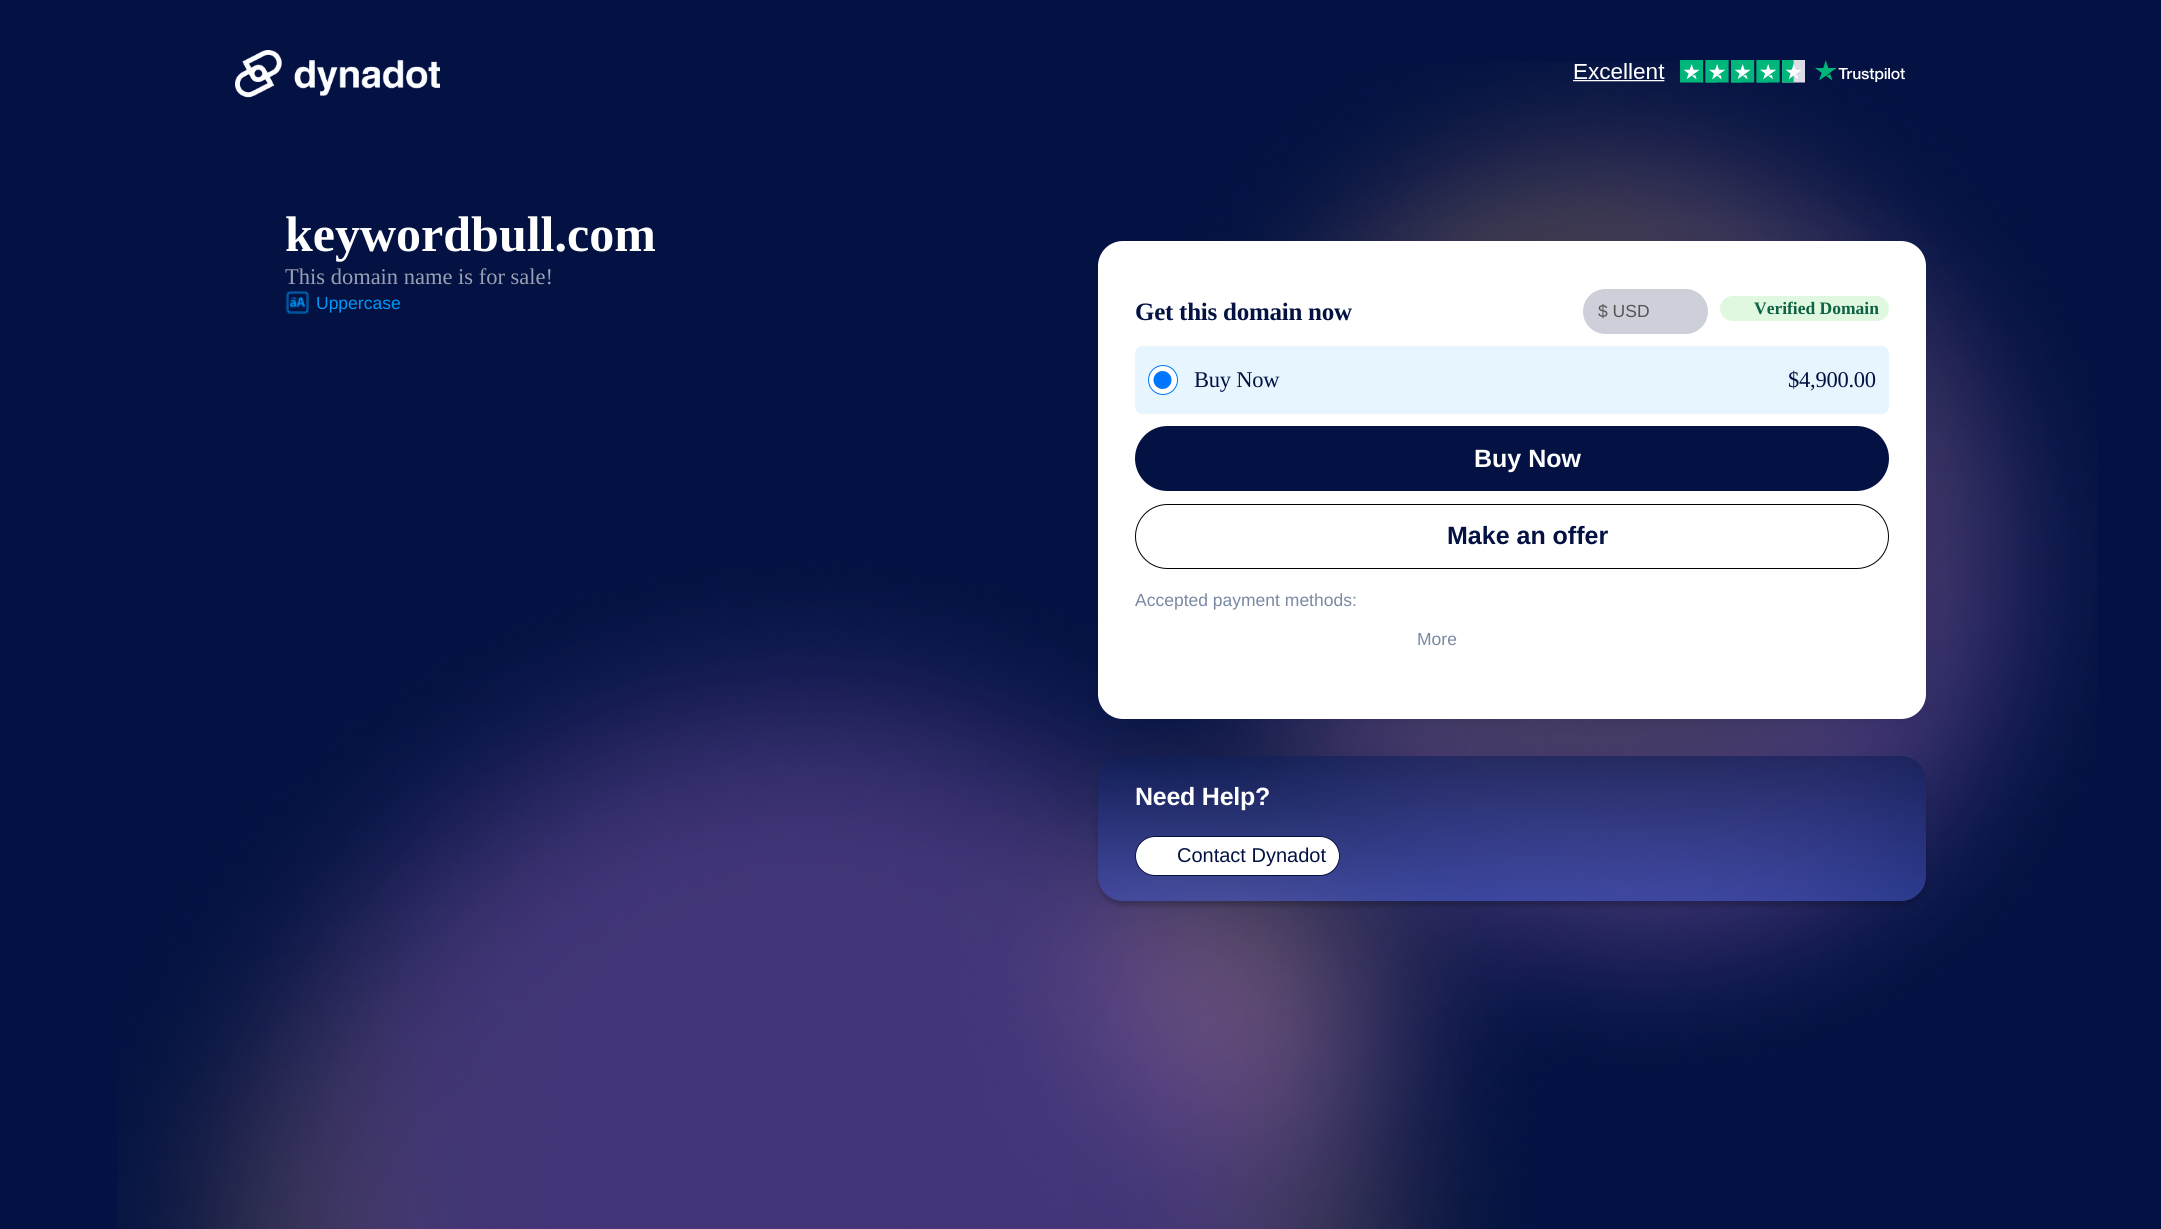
import math
import cairo

surface = cairo.ImageSurface(cairo.FORMAT_RGB24, 2161, 1229)
c = cairo.Context(surface)
options = cairo.FontOptions()
options.set_hint_metrics(cairo.HINT_METRICS_OFF)
options.set_hint_style(cairo.HINT_STYLE_NONE)
c.set_font_options(options)
c.set_miter_limit(4)
def C(code):
 c.set_source_rgb(*(v / 255 for v in bytes.fromhex(code[-6:])))
def F(family, size, italic, bold):
 c.select_font_face(family, cairo.FONT_SLANT_ITALIC if italic else cairo.FONT_SLANT_NORMAL, cairo.FONT_WEIGHT_BOLD if bold else cairo.FONT_WEIGHT_NORMAL)
 c.set_font_size(size)
def T(x, y, s):
 c.move_to(x, y)
 c.show_text(s)
def L(x, y, s, letter, word):
 c.move_to(x, y)
 for ch in s:
  c.show_text(ch)
  c.rel_move_to(letter + word * (ch == ' '), 0)
def Q(x, y, w, h, r):
 c.new_sub_path()
 for i, (u, v) in enumerate([(x + w - r, y + h - r), (x + r, y + h - r), (x + r, y + r), (x + w - r, y + r)]):
  c.arc(u, v, r, i * math.pi / 2, (i + 1) * math.pi / 2)
 c.close_path()
def S(x, y, w, h, r, blur, alpha):
 c.push_group_with_content(cairo.CONTENT_ALPHA)
 c.set_operator(cairo.OPERATOR_SOURCE)
 for i in range(15, -16, -2):
  e = blur * i / 6
  if min(w, h) + 2 * e > 0:
   c.set_source_rgba(0, 0, 0, alpha * math.erfc((i - 1) / 8.5) / 2)
   Q(x - e, y - e, w + 2 * e, h + 2 * e, max(0, min(r + e + blur * .6, min(w, h) / 2 + e)))
   c.fill()
 c.mask(c.pop_group())
def I(path, x, y, w, h):
 c.save()
 c.set_source_surface(cairo.ImageSurface.create_from_png(path), x, y)
 c.rectangle(x, y, w, h)
 c.fill()
 c.restore()
C('031242')
c.paint()
I('1.png',117,62,1981,1167)
I('2.png',235,50,205,48)
I('3.png',1573,60,332,23)
F('Liberation Serif',50,0,1)
C('ffffff')
T(285,251,'keywordbull.com')
F('Liberation Serif',22.5,0,0)
C('9aa0b3')
T(285,284,'This domain name is for sale!')
I('4.png',286,291,23,23)
F('Liberation Sans',17.5,0,0)
C('0096f7')
T(316,309,'Uppercase')
C('031242')
S(1098,244,828,477,25,9.5,.15)
C('ffffff')
Q(1098,241,828,478,25)
c.fill()
F('Liberation Serif',25,0,1)
C('031242')
L(1135,320,'Get this domain now',-.25,0)
C('cdd0d9')
Q(1583,289,125,45,22.5)
c.fill()
F('Liberation Sans',17.5,0,0)
C('555555')
T(1598,317,'$ USD')
C('e0f8df')
Q(1720,296,169,25,12.5)
c.fill()
F('Liberation Serif',17.5,0,1)
C('0d6245')
T(1754,314,'Verified Domain')
C('e6f5fe')
Q(1135,346,754,68,8)
c.fill()
C('ffffff')
c.arc(1163,380,14.5,0,2 * math.pi)
c.fill_preserve()
C('0075ff')
c.set_line_width(1)
c.stroke()
c.arc(1162.5,380,9,0,2 * math.pi)
c.fill()
F('Liberation Serif',22.5,0,0)
C('031242')
L(1194,387,'Buy Now',-.25,0)
L(1788,387,'$4,900.00',-.25,0)
Q(1135,426,754,65,32.5)
c.fill()
F('Liberation Sans',25,0,1)
C('ffffff')
T(1474,467,'Buy Now')
Q(1135.5,504.5,753,64,32)
C('000000')
c.stroke()
C('031242')
T(1447,544,'Make an offer')
F('Liberation Sans',17.5,0,0)
C('7989a3')
T(1135,606,'Accepted payment methods:')
T(1417,645,'More')
c.save()
c.set_fill_rule(cairo.FILL_RULE_EVEN_ODD)
c.new_path()
c.move_to(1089,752)
c.line_to(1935,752)
c.line_to(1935,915)
c.line_to(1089,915)
c.close_path()
c.move_to(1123,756)
c.line_to(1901,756)
c.curve_to(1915,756,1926,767,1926,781)
c.line_to(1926,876)
c.curve_to(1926,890,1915,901,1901,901)
c.line_to(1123,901)
c.curve_to(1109,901,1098,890,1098,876)
c.line_to(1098,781)
c.curve_to(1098,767,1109,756,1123,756)
c.close_path()
c.clip()
C('000000')
S(1098,761,828,145,25,2.5,.2)
c.restore()
gradient = cairo.RadialGradient(0,0,0,0,0,1)
gradient.set_matrix(cairo.Matrix(1 / 1859, 0, 0, 1 / 216, -1 * 1512 / 1859, -1 * 938 / 216))
gradient.add_color_stop_rgba(0,0.341,0.416,0.902,.6)
gradient.add_color_stop_rgba(1,0.012,0.071,0.259,.6)
c.set_source(gradient)
Q(1098,756,828,145,25)
c.fill()
F('Liberation Sans',25,0,1)
C('ffffff')
L(1135,805,'Need Help?',-.25,0)
Q(1135.5,836.5,204,39,19.5)
c.fill_preserve()
C('031242')
c.stroke()
F('Liberation Sans',20,0,0)
T(1177,862,'Contact Dynadot')
surface.write_to_png('o.png')
